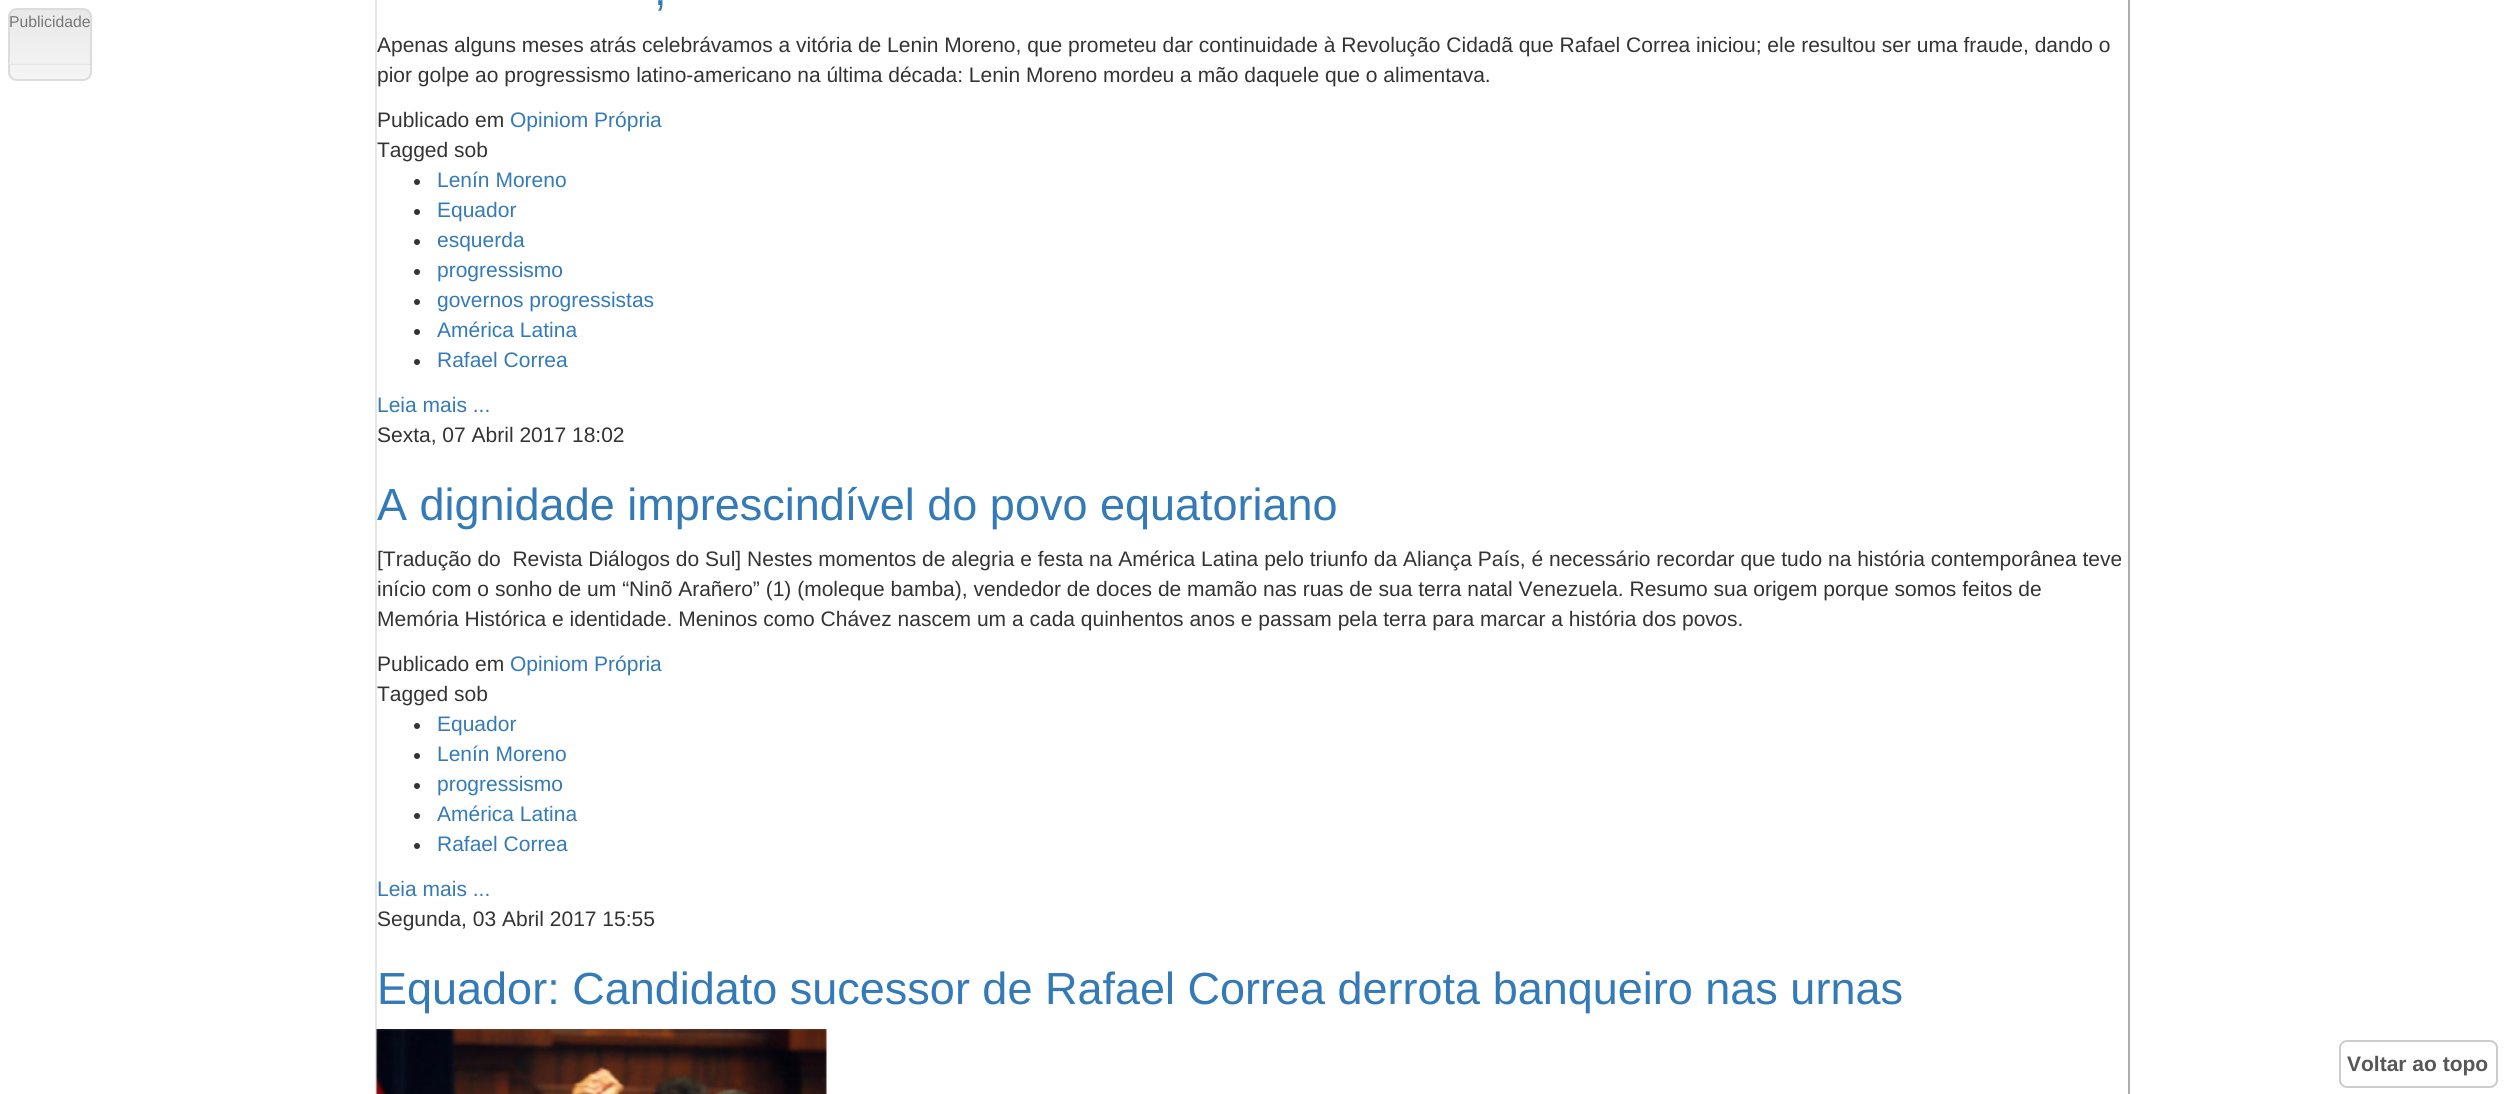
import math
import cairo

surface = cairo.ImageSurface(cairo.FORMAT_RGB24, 2504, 1094)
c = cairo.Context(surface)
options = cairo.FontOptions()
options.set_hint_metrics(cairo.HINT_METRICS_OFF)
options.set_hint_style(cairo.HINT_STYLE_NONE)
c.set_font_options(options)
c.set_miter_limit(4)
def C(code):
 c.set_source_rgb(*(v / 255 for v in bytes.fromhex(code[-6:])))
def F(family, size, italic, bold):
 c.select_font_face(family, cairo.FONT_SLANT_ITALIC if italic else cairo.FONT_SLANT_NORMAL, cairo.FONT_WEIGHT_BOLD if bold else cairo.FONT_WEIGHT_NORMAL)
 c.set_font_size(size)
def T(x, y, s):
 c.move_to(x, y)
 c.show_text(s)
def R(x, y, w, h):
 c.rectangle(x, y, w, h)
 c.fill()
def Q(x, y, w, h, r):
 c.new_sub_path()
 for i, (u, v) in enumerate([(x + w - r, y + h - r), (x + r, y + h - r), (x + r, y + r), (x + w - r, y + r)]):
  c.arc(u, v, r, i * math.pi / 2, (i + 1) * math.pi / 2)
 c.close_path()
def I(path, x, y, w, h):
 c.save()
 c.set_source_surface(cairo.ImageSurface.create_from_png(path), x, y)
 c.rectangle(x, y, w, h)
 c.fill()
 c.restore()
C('ffffff')
c.paint()
c.save()
Q(8,8,84,73,9)
c.clip()
gradient = cairo.LinearGradient(50,9,50,80)
gradient.add_color_stop_rgba(0,0.91,0.91,0.91,1)
gradient.add_color_stop_rgba(1,0.961,0.961,0.961,1)
c.set_source(gradient)
R(8,9,84,71)
c.restore()
Q(9,9,82,71,8)
C('dcdcdc')
c.stroke()
F('Liberation Sans',15.75,0,0)
C('777777')
T(9,27,'Publicidade')
C('e5e5e5')
R(9,64,81,1)
C('eeeeee')
R(9,62,81,2)
c.new_path()
c.move_to(2127.5,-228.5)
c.curve_to(2128.5,-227,2129,-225.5,2129,-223.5)
c.line_to(2129,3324)
c.curve_to(2129,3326,2128.5,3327.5,2127.5,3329)
c.curve_to(2126,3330,2124.5,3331,2122.5,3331)
c.line_to(382.5,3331)
c.curve_to(380.5,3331,379,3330,377.5,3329)
C('939393')
c.set_line_width(1.5)
c.stroke()
c.new_path()
c.move_to(377.5,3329)
c.curve_to(376.5,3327.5,376,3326,376,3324)
c.line_to(376,-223.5)
c.curve_to(376,-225.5,376.5,-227,377.5,-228.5)
c.curve_to(379,-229.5,380.5,-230,382.5,-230)
c.line_to(2122.5,-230)
c.curve_to(2124.5,-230,2126,-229.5,2127.5,-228.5)
C('dddddd')
c.stroke()
F('Liberation Sans',45,0,0)
C('337ab7')
T(654,5,',')
F('Liberation Sans',21,0,0)
C('333333')
T(377,52,'Apenas alguns meses atrás celebrávamos a vitória de Lenin Moreno, que prometeu dar continuidade à Revolução Cidadã que Rafael Correa iniciou; ele resultou ser uma fraude, dando o')
T(377,82,'pior golpe ao progressismo latino-americano na última década: Lenin Moreno mordeu a mão daquele que o alimentava.')
T(377,127,'Publicado em')
C('337ab7')
T(510,127,'Opiniom Própria')
C('333333')
T(377,157,'Tagged sob')
c.new_path()
c.arc(417,182,3,0,2 * math.pi)
c.fill()
C('337ab7')
T(437,187,'Lenín Moreno')
C('333333')
c.new_path()
c.arc(417,212,3,0,2 * math.pi)
c.fill()
C('337ab7')
T(437,217,'Equador')
C('333333')
c.new_path()
c.arc(417,242,3,0,2 * math.pi)
c.fill()
C('337ab7')
T(437,247,'esquerda')
C('333333')
c.new_path()
c.arc(417,272,3,0,2 * math.pi)
c.fill()
C('337ab7')
T(437,277,'progressismo')
C('333333')
c.new_path()
c.arc(417,302,3,0,2 * math.pi)
c.fill()
C('337ab7')
T(437,307,'governos progressistas')
C('333333')
c.new_path()
c.arc(417,332,3,0,2 * math.pi)
c.fill()
C('337ab7')
T(437,337,'América Latina')
C('333333')
c.new_path()
c.arc(417,362,3,0,2 * math.pi)
c.fill()
C('337ab7')
T(437,367,'Rafael Correa')
T(377,412,'Leia mais ...')
C('333333')
T(377,442,'Sexta, 07 Abril 2017 18:02')
F('Liberation Sans',45,0,0)
C('337ab7')
T(377,520,'A dignidade imprescindível do povo equatoriano')
F('Liberation Sans',21,0,0)
C('333333')
T(377,566,'[Tradução do  Revista Diálogos do Sul] Nestes momentos de alegria e festa na América Latina pelo triunfo da Aliança País, é necessário recordar que tudo na história contemporânea teve')
T(377,596,'início com o sonho de um “Ninõ Arañero” (1) (moleque bamba), vendedor de doces de mamão nas ruas de sua terra natal Venezuela. Resumo sua origem porque somos feitos de')
T(377,626,'Memória Histórica e identidade. Meninos como Chávez nascem um a cada quinhentos anos e passam pela terra para marcar a história dos pov')
F('Liberation Sans',21,1,0)
T(1715,626,'o')
F('Liberation Sans',21,0,0)
T(1727,626,'s.')
T(377,671,'Publicado em')
C('337ab7')
T(510,671,'Opiniom Própria')
C('333333')
T(377,701,'Tagged sob')
c.new_path()
c.arc(417,726,3,0,2 * math.pi)
c.fill()
C('337ab7')
T(437,731,'Equador')
C('333333')
c.new_path()
c.arc(417,756,3,0,2 * math.pi)
c.fill()
C('337ab7')
T(437,761,'Lenín Moreno')
C('333333')
c.new_path()
c.arc(417,786,3,0,2 * math.pi)
c.fill()
C('337ab7')
T(437,791,'progressismo')
C('333333')
c.new_path()
c.arc(417,816,3,0,2 * math.pi)
c.fill()
C('337ab7')
T(437,821,'América Latina')
C('333333')
c.new_path()
c.arc(417,846,3,0,2 * math.pi)
c.fill()
C('337ab7')
T(437,851,'Rafael Correa')
T(377,896,'Leia mais ...')
C('333333')
T(377,926,'Segunda, 03 Abril 2017 15:55')
F('Liberation Sans',45,0,0)
C('337ab7')
T(377,1004,'Equador: Candidato sucessor de Rafael Correa derrota banqueiro nas urnas')
I('1.png',376,1029,451,65)
Q(2340,1041,157,46,7)
C('cccccc')
c.set_line_width(2)
c.stroke()
F('Liberation Sans',21,0,1)
C('575757')
T(2347,1071,'Voltar ao topo')
surface.write_to_png('o.png')
